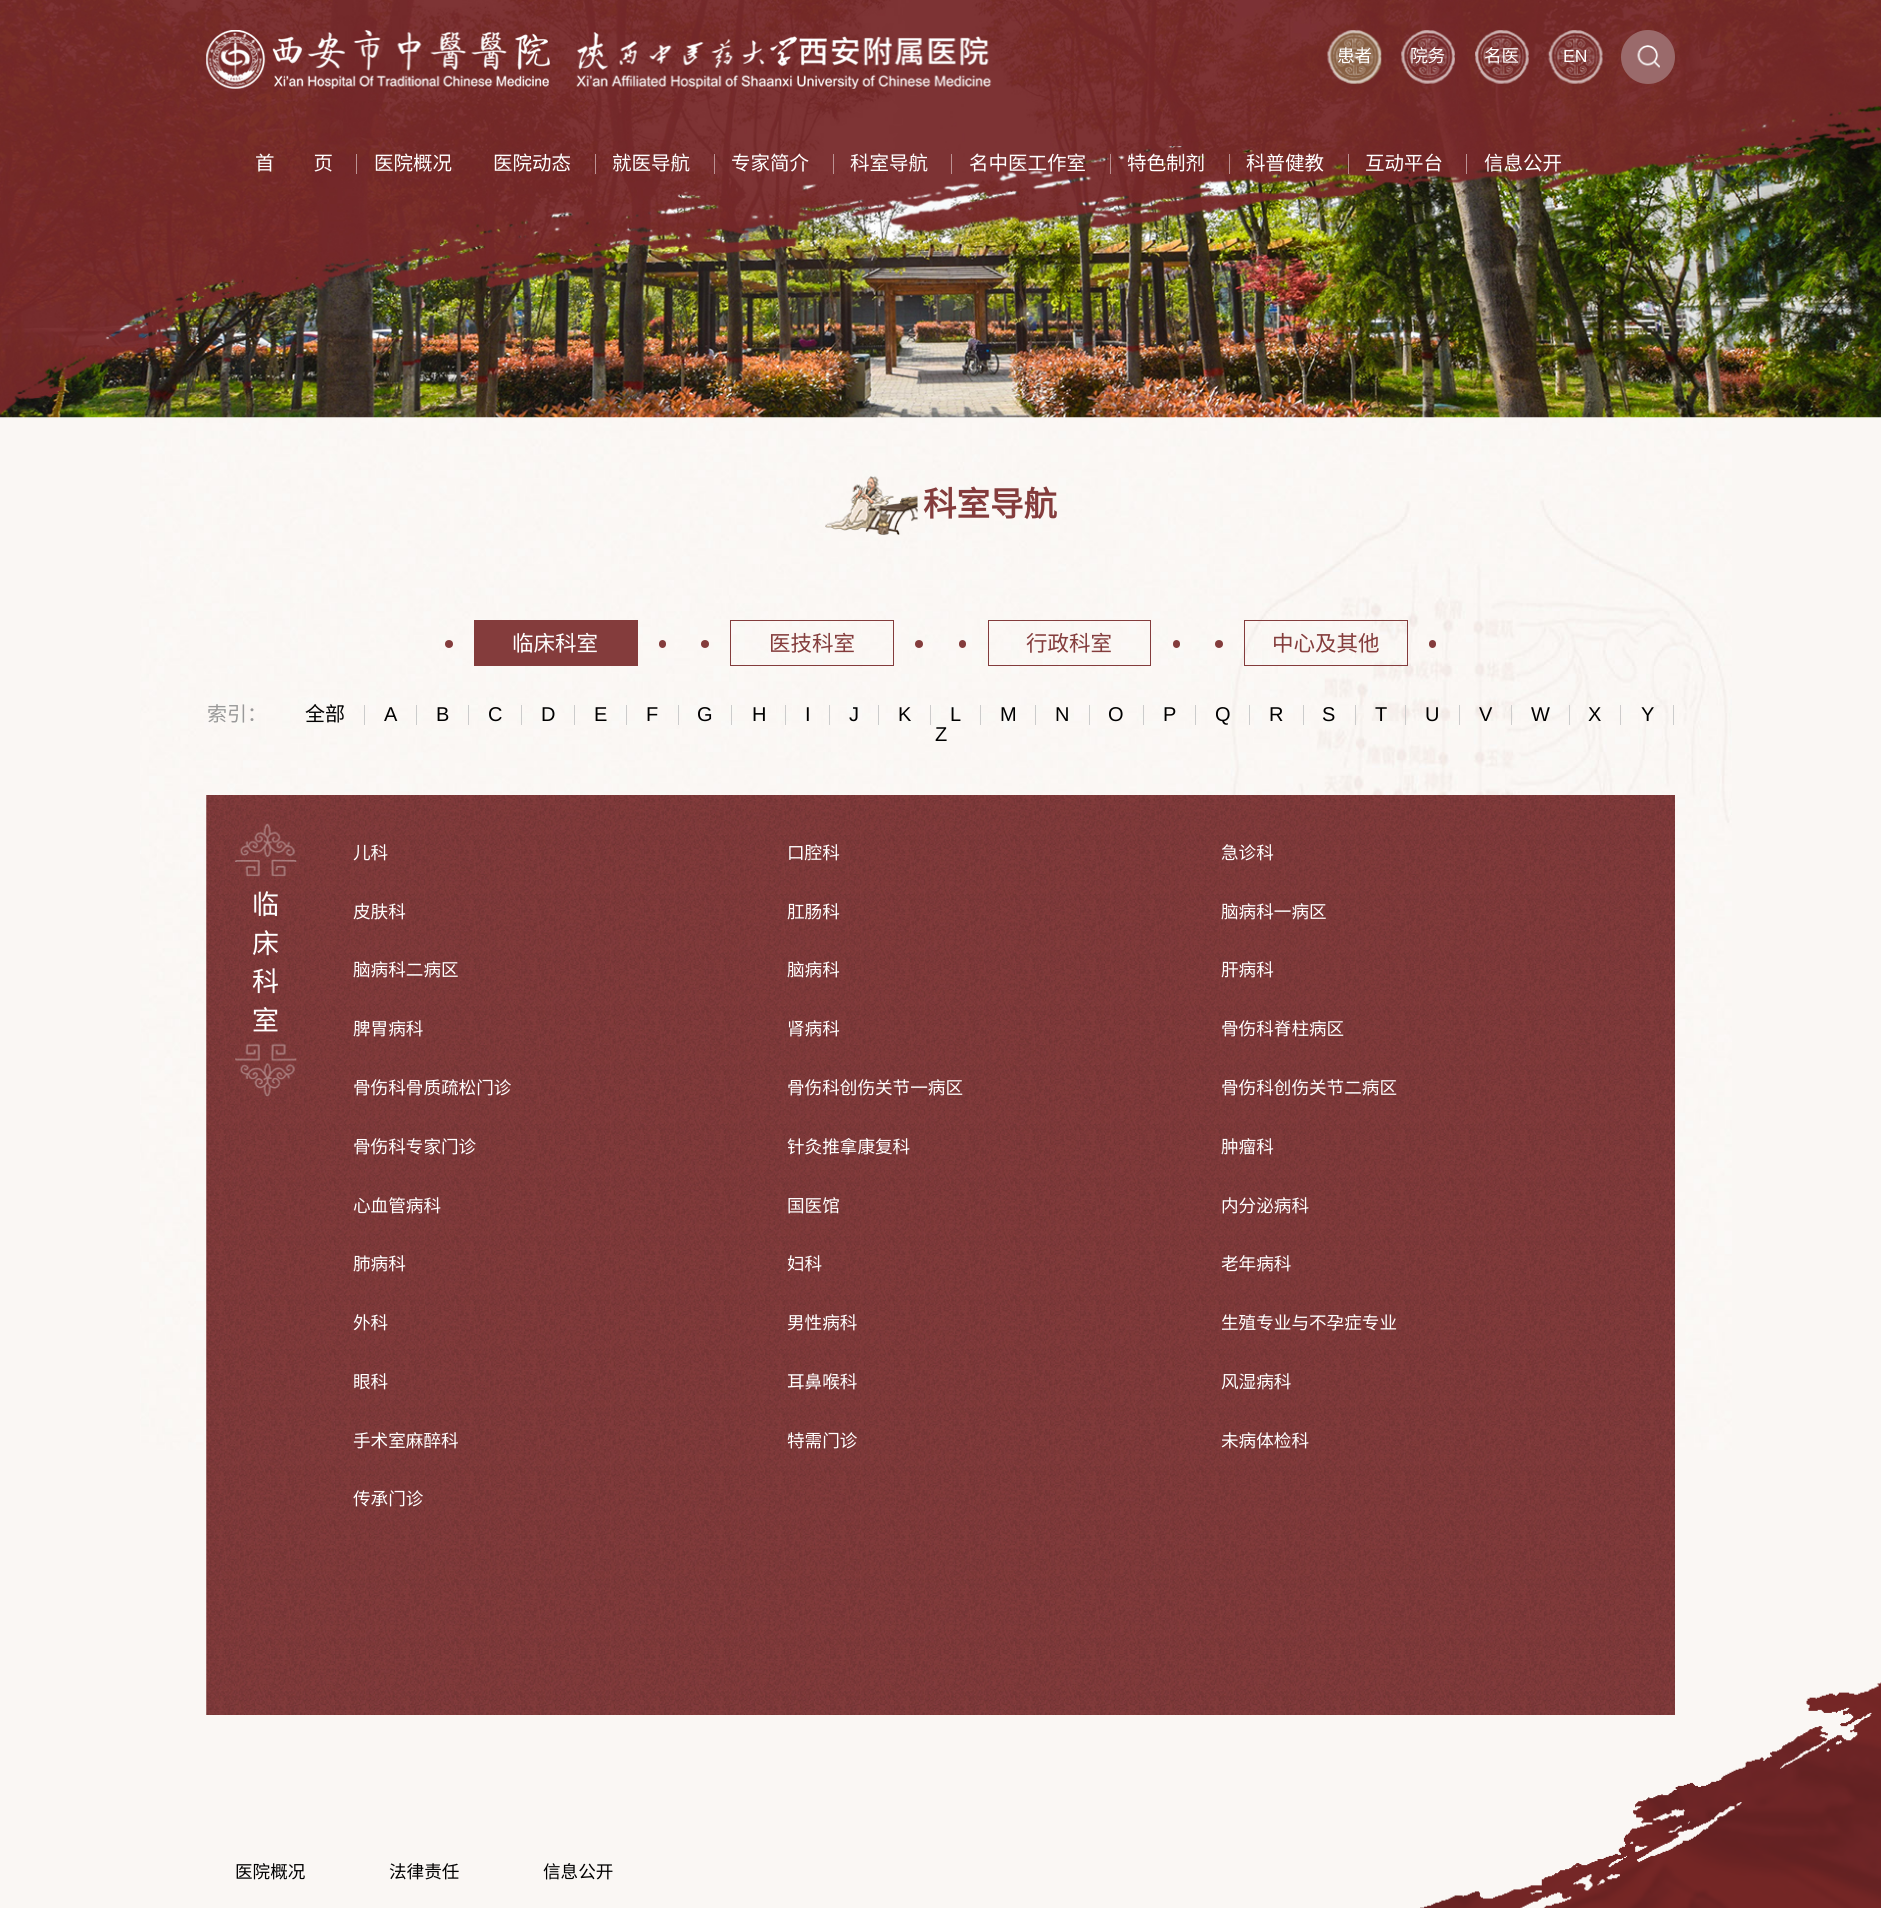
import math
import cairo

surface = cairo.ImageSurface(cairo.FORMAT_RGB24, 1881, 1908)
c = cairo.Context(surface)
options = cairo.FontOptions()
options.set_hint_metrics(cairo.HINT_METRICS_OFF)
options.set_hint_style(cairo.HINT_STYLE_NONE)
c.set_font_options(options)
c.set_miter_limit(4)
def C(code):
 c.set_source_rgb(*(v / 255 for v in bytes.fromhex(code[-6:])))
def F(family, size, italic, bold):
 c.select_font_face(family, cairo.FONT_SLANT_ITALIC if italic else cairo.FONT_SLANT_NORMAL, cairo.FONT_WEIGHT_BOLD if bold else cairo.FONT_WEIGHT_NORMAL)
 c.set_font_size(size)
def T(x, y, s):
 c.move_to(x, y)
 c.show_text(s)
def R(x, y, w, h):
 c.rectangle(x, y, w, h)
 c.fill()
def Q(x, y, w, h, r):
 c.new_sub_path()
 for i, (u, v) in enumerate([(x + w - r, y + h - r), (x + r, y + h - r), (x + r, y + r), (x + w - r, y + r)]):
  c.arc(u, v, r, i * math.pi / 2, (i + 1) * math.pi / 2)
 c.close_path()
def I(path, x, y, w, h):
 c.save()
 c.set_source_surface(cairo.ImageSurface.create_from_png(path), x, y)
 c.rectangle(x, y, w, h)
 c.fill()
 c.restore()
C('faf7f4')
c.paint()
I('1.png',140,417,1592,1033)
I('2.png',0,0,1881,418)
I('3.png',206,30,786,59)
I('4.png',1327,30,55,54)
F('Noto Sans CJK SC',17.6,0,0)
C('ffffff')
T(1337,62,'患者')
I('5.png',1401,30,54,54)
T(1410,62,'院务')
I('6.png',1475,30,54,54)
T(1484,62,'名医')
I('7.png',1548,30,55,54)
F('Liberation Sans',17.6,0,0)
T(1563,62,'EN')
C('9a6a6b')
c.new_path()
c.arc(1648,57,27,0,2 * math.pi)
c.fill()
I('8.png',1637,45,23,23)
F('Noto Sans CJK SC',19.5,0,0)
C('ffffff')
T(255,170,'首　　页')
C('bc9394')
R(356,154,1,20)
C('ffffff')
T(374,170,'医院概况')
T(493,170,'医院动态')
C('bc9394')
R(595,154,1,20)
C('ffffff')
T(612,170,'就医导航')
C('bc9394')
R(714,154,1,20)
C('ffffff')
T(731,170,'专家简介')
C('bc9394')
R(833,154,1,20)
C('ffffff')
T(850,170,'科室导航')
C('bc9394')
R(951,154,1,20)
C('ffffff')
T(969,170,'名中医工作室')
C('bc9394')
R(1110,154,1,20)
C('ffffff')
T(1127,170,'特色制剂')
C('bc9394')
R(1229,154,1,20)
C('ffffff')
T(1246,170,'科普健教')
C('bc9394')
R(1348,154,1,20)
C('ffffff')
T(1365,170,'互动平台')
C('bc9394')
R(1466,154,1,20)
C('ffffff')
T(1484,170,'信息公开')
I('9.png',825,476,93,59)
F('Noto Sans CJK SC',33.5,0,1)
C('843c3c')
T(923,516,'科室导航')
c.new_path()
c.arc(449,644,4,0,2 * math.pi)
c.fill()
R(474,620,164,46)
F('Noto Sans CJK SC',21.5,0,0)
C('ffffff')
T(512,651,'临床科室')
C('843c3c')
Q(659,640,7,8,3.5)
c.fill()
c.arc(705,644,4,0,2 * math.pi)
c.fill()
c.rectangle(730.5,620.5,163,45)
c.set_line_width(1)
c.stroke()
T(769,651,'医技科室')
c.new_path()
c.arc(919,644,4,0,2 * math.pi)
c.fill()
Q(959,640,7,8,3.5)
c.fill()
c.rectangle(988.5,620.5,162,45)
c.stroke()
T(1026,651,'行政科室')
Q(1173,640,7,8,3.5)
c.fill()
c.arc(1219,644,4,0,2 * math.pi)
c.fill()
c.rectangle(1244.5,620.5,163,45)
c.stroke()
T(1272,651,'中心及其他')
Q(1429,640,7,8,3.5)
c.fill()
F('Noto Sans CJK SC',20,0,0)
C('999999')
T(207,721,'索引：')
C('cccccc')
R(364,705,1,20)
C('000000')
T(305,721,'全部')
C('cccccc')
R(416,705,1,20)
F('Liberation Sans',20,0,0)
C('000000')
T(384,721,'A')
C('cccccc')
R(468,705,1,20)
C('000000')
T(436,721,'B')
C('cccccc')
R(521,705,1,20)
C('000000')
T(488,721,'C')
C('cccccc')
R(574,705,1,20)
C('000000')
T(541,721,'D')
C('cccccc')
R(626,705,1,20)
C('000000')
T(594,721,'E')
C('cccccc')
R(678,705,1,20)
C('000000')
T(646,721,'F')
C('cccccc')
R(731,705,1,20)
C('000000')
T(697,721,'G')
C('cccccc')
R(785,705,1,20)
C('000000')
T(752,721,'H')
C('cccccc')
R(829,705,1,20)
C('000000')
T(805,721,'I')
C('cccccc')
R(878,705,1,20)
C('000000')
T(849,721,'J')
C('cccccc')
R(930,705,1,20)
C('000000')
T(898,721,'K')
C('cccccc')
R(980,705,1,20)
C('000000')
T(950,721,'L')
C('cccccc')
R(1035,705,1,20)
C('000000')
T(1000,721,'M')
C('cccccc')
R(1089,705,1,20)
C('000000')
T(1055,721,'N')
C('cccccc')
R(1143,705,1,20)
C('000000')
T(1108,721,'O')
C('cccccc')
R(1195,705,1,20)
C('000000')
T(1163,721,'P')
C('cccccc')
R(1249,705,1,20)
C('000000')
T(1215,721,'Q')
C('cccccc')
R(1303,705,1,20)
C('000000')
T(1269,721,'R')
C('cccccc')
R(1355,705,1,20)
C('000000')
T(1322,721,'S')
C('cccccc')
R(1405,705,1,20)
C('000000')
T(1375,721,'T')
C('cccccc')
R(1459,705,1,20)
C('000000')
T(1425,721,'U')
C('cccccc')
R(1511,705,1,20)
C('000000')
T(1479,721,'V')
C('cccccc')
R(1569,705,1,20)
C('000000')
T(1531,721,'W')
C('cccccc')
R(1620,705,1,20)
C('000000')
T(1588,721,'X')
C('cccccc')
R(1673,705,1,20)
C('000000')
T(1641,721,'Y')
T(935,741,'Z')
I('10.png',206,795,1469,920)
I('11.png',235,823,62,54)
F('Noto Sans CJK SC',27,0,0)
C('ffffff')
T(252,914,'临')
T(252,953,'床')
T(252,991,'科')
T(252,1030,'室')
I('12.png',235,1043,62,54)
F('Noto Sans CJK SC',17.6,0,0)
T(353,859,'儿科')
T(787,859,'口腔科')
T(1221,859,'急诊科')
T(353,918,'皮肤科')
T(787,918,'肛肠科')
T(1221,918,'脑病科一病区')
T(353,976,'脑病科二病区')
T(787,976,'脑病科')
T(1221,976,'肝病科')
T(353,1035,'脾胃病科')
T(787,1035,'肾病科')
T(1221,1035,'骨伤科脊柱病区')
T(353,1094,'骨伤科骨质疏松门诊')
T(787,1094,'骨伤科创伤关节一病区')
T(1221,1094,'骨伤科创伤关节二病区')
T(353,1153,'骨伤科专家门诊')
T(787,1153,'针灸推拿康复科')
T(1221,1153,'肿瘤科')
T(353,1212,'心血管病科')
T(787,1212,'国医馆')
T(1221,1212,'内分泌病科')
T(353,1270,'肺病科')
T(787,1270,'妇科')
T(1221,1270,'老年病科')
T(353,1329,'外科')
T(787,1329,'男性病科')
T(1221,1329,'生殖专业与不孕症专业')
T(353,1388,'眼科')
T(787,1388,'耳鼻喉科')
T(1221,1388,'风湿病科')
T(353,1447,'手术室麻醉科')
T(787,1447,'特需门诊')
T(1221,1447,'未病体检科')
T(353,1505,'传承门诊')
C('000000')
T(235,1878,'医院概况')
T(389,1878,'法律责任')
T(543,1878,'信息公开')
I('13.png',1420,1682,461,226)
surface.write_to_png('o.png')
